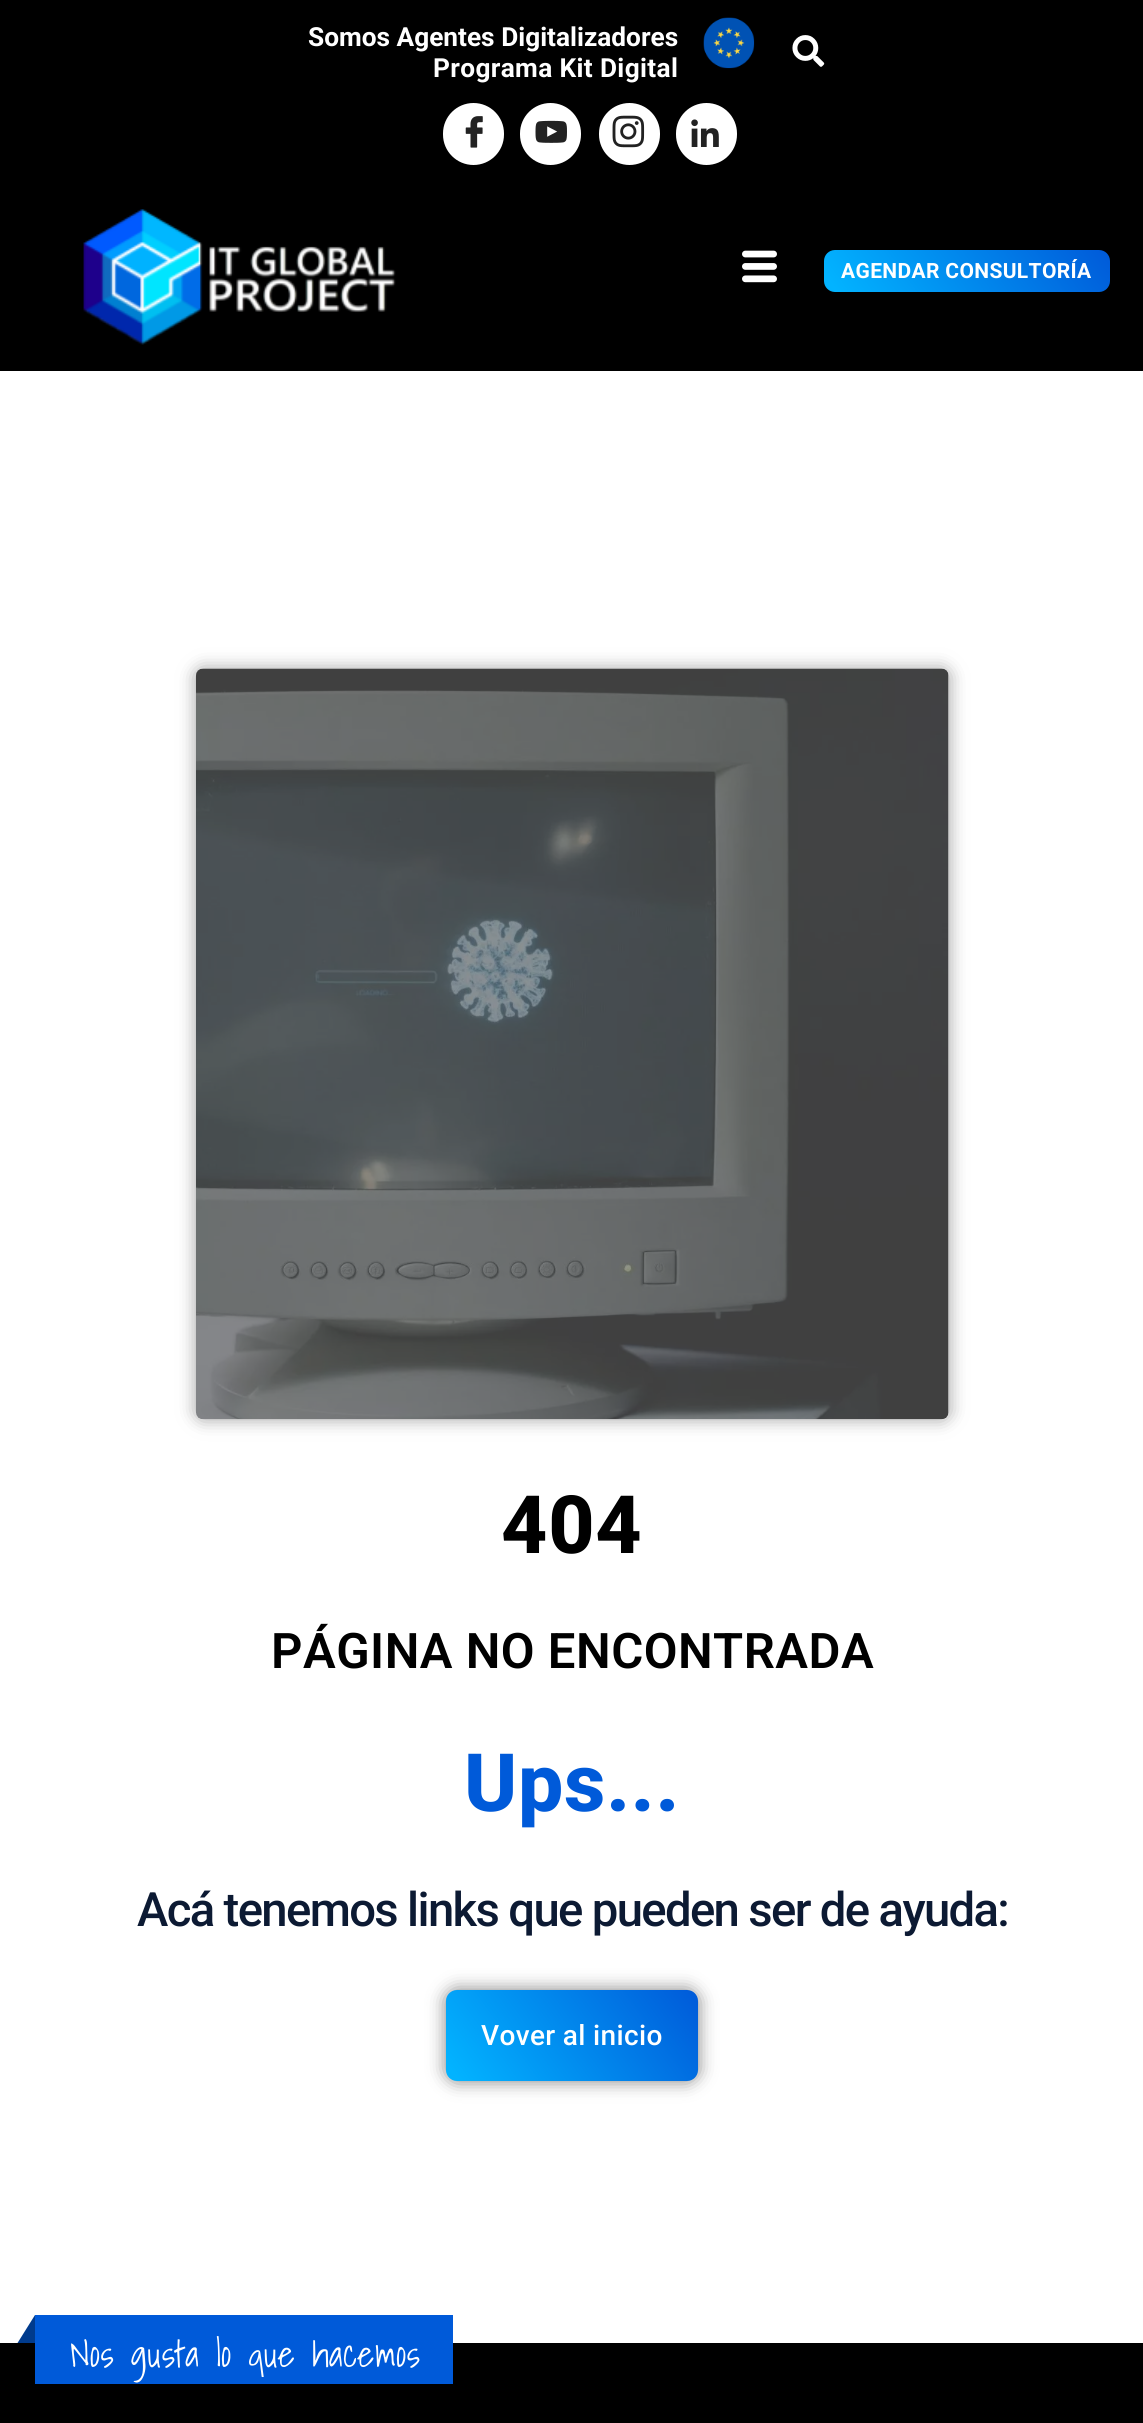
import math
import cairo

surface = cairo.ImageSurface(cairo.FORMAT_RGB24, 1143, 2423)
c = cairo.Context(surface)
options = cairo.FontOptions()
options.set_hint_metrics(cairo.HINT_METRICS_OFF)
options.set_hint_style(cairo.HINT_STYLE_NONE)
c.set_font_options(options)
c.set_miter_limit(4)
def C(code):
 c.set_source_rgb(*(v / 255 for v in bytes.fromhex(code[-6:])))
def F(family, size, italic, bold):
 c.select_font_face(family, cairo.FONT_SLANT_ITALIC if italic else cairo.FONT_SLANT_NORMAL, cairo.FONT_WEIGHT_BOLD if bold else cairo.FONT_WEIGHT_NORMAL)
 c.set_font_size(size)
def T(x, y, s):
 c.move_to(x, y)
 c.show_text(s)
def L(x, y, s, letter, word):
 c.move_to(x, y)
 for ch in s:
  c.show_text(ch)
  c.rel_move_to(letter + word * (ch == ' '), 0)
def R(x, y, w, h):
 c.rectangle(x, y, w, h)
 c.fill()
def Q(x, y, w, h, r):
 c.new_sub_path()
 for i, (u, v) in enumerate([(x + w - r, y + h - r), (x + r, y + h - r), (x + r, y + r), (x + w - r, y + r)]):
  c.arc(u, v, r, i * math.pi / 2, (i + 1) * math.pi / 2)
 c.close_path()
def S(x, y, w, h, r, blur, alpha):
 c.push_group_with_content(cairo.CONTENT_ALPHA)
 c.set_operator(cairo.OPERATOR_SOURCE)
 for i in range(15, -16, -2):
  e = blur * i / 6
  if min(w, h) + 2 * e > 0:
   c.set_source_rgba(0, 0, 0, alpha * math.erfc((i - 1) / 8.5) / 2)
   Q(x - e, y - e, w + 2 * e, h + 2 * e, max(0, min(r + e + blur * .6, min(w, h) / 2 + e)))
   c.fill()
 c.mask(c.pop_group())
def I(path, x, y, w, h):
 c.save()
 c.set_source_surface(cairo.ImageSurface.create_from_png(path), x, y)
 c.rectangle(x, y, w, h)
 c.fill()
 c.restore()
C('ffffff')
c.paint()
C('000000')
R(0,0,1143,371)
F('Roboto',26.25,0,1)
C('ffffff')
T(308,46,'Somos Agentes Digitalizadores')
L(433,77,'Programa Kit Digital',.35,0)
I('1.png',703,17,52,52)
I('2.png',792,35,33,32)
Q(443,103,61,62,30.5)
c.fill()
I('3.png',465,116,18,32)
Q(520,103,61,62,30.5)
c.fill()
I('4.png',535,120,32,23)
Q(599,103,61,62,30.5)
c.fill()
I('5.png',612,115,33,33)
Q(676,103,61,62,30.5)
c.fill()
I('6.png',691,119,28,28)
I('7.png',83,209,313,136)
I('8.png',742,250,35,33)
gradient = cairo.LinearGradient(864,346,1070,196)
gradient.add_color_stop_rgba(.04,0.008,0.702,1,1)
gradient.add_color_stop_rgba(1,0,0.353,0.851,1)
c.set_source(gradient)
Q(824,250,286,42,11)
c.fill()
F('Roboto',21,0,1)
C('ffffff')
L(841,278,'AGENDAR CONSULTORÍA',.35,0)
C('404040')
S(196,669,753,750,7,9,.5)
I('9.png',196,668,753,752)
F('Roboto ExtraBold',80.5,0,0)
C('000000')
L(501,1553,'404',.75,0)
F('Roboto SemiBold',49,0,0)
L(271,1668,'PÁGINA NO ENCONTRADA',.5,0)
F('Roboto ExtraBold',80.5,0,0)
C('005ad9')
L(464,1811,'Ups...',.75,0)
F('Roboto Medium',47.25,0,0)
C('0c1a33')
L(137,1926,'Acá tenemos links que pueden ser de ayuda:',-1.65,0)
C('000000')
S(446,1990,252,91,11,9,.5)
gradient = cairo.LinearGradient(468,2111,676,1960)
gradient.add_color_stop_rgba(.04,0.008,0.702,1,1)
gradient.add_color_stop_rgba(1,0,0.353,0.851,1)
c.set_source(gradient)
Q(446,1990,252,91,11)
c.fill()
F('Roboto Medium',28,0,0)
C('ffffff')
L(481,2045,'Vover al inicio',.35,0)
C('000000')
R(0,2343,1143,80)
C('005ad9')
R(35,2315,418,69)
C('003b8d')
c.new_path()
c.move_to(35,2315)
c.line_to(35,2343)
c.line_to(17.5,2343)
c.close_path()
c.fill()
F('Shadows Into Light Light',36.5,0,0)
C('ffffff')
L(70,2367,'Nos gusta lo que hacemos',.35,0)
surface.write_to_png('o.png')
